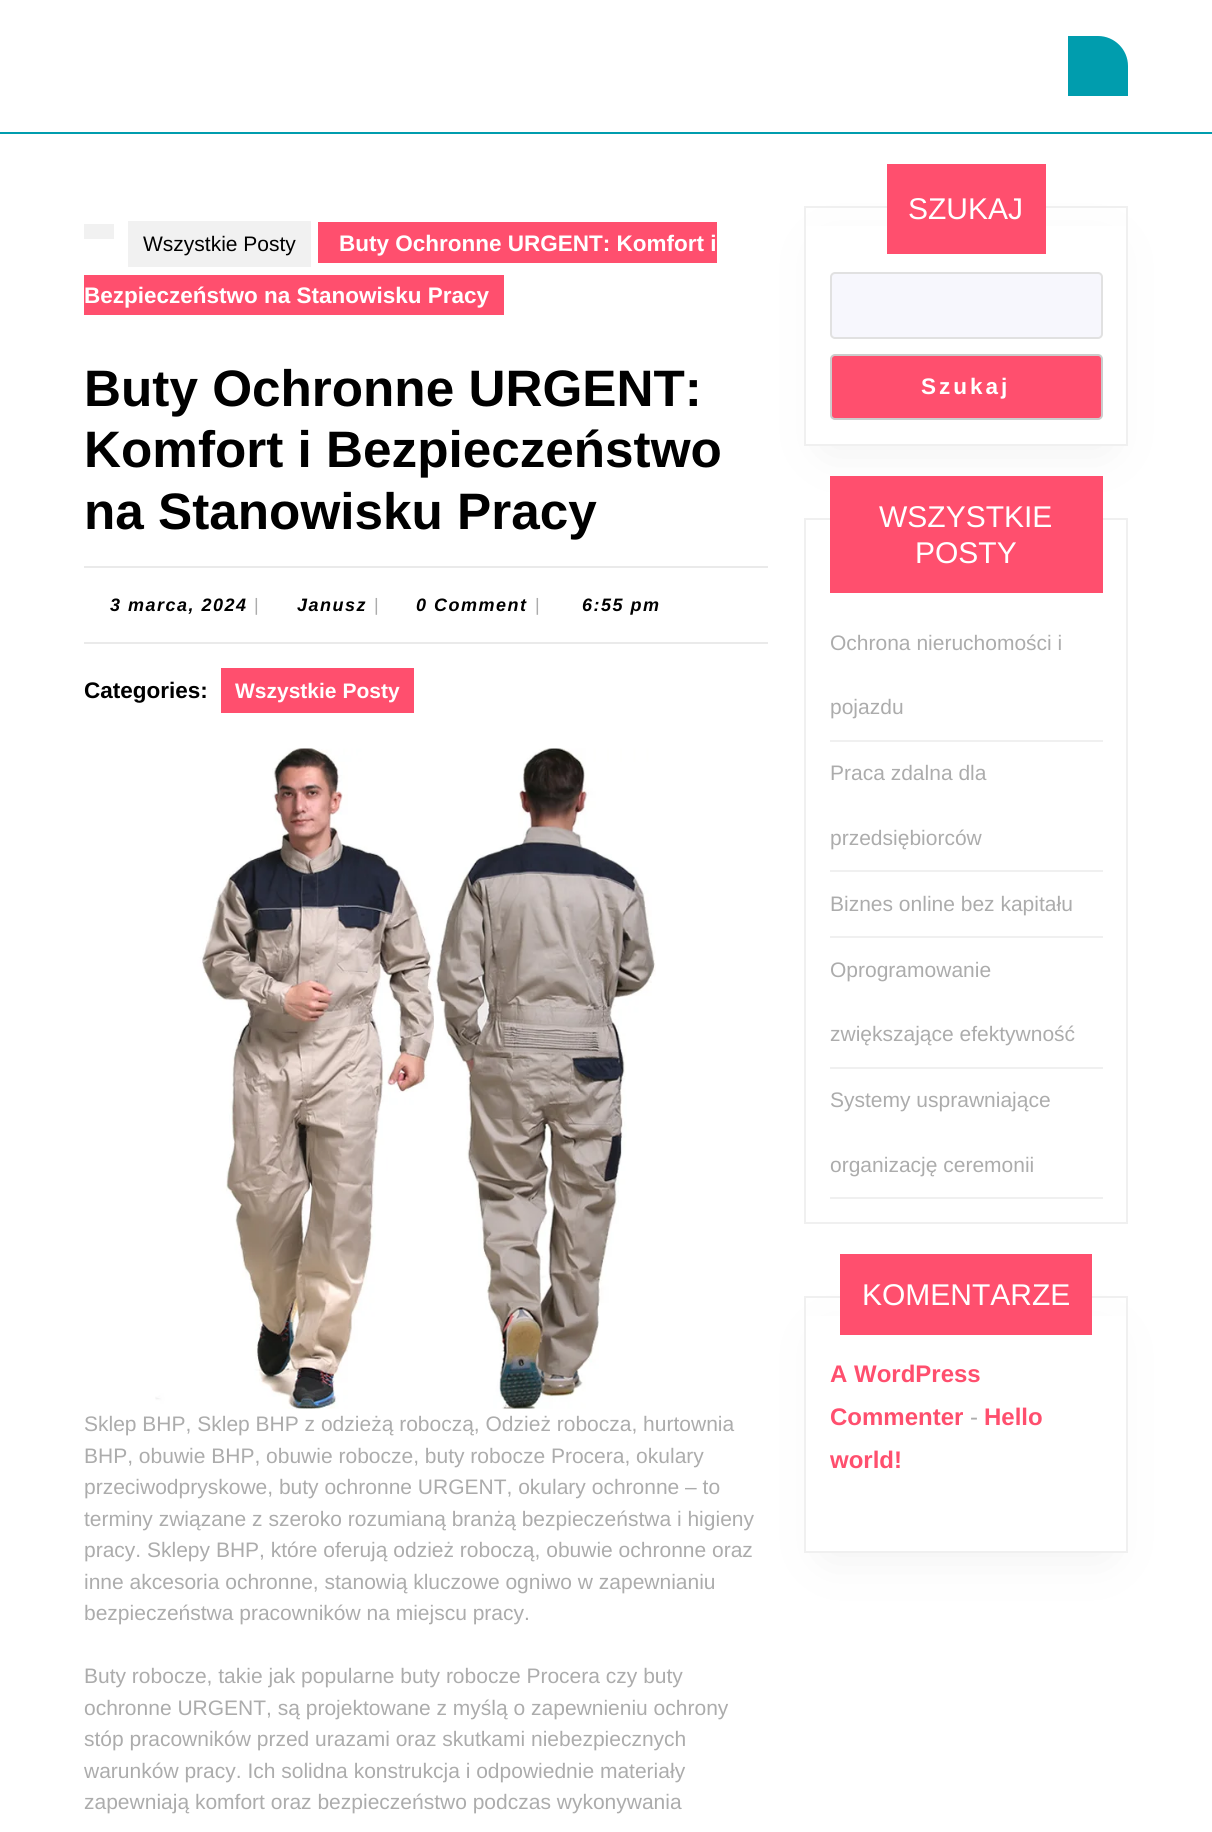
import math
import cairo

surface = cairo.ImageSurface(cairo.FORMAT_RGB24, 1212, 1832)
c = cairo.Context(surface)
options = cairo.FontOptions()
options.set_hint_metrics(cairo.HINT_METRICS_OFF)
options.set_hint_style(cairo.HINT_STYLE_NONE)
c.set_font_options(options)
c.set_miter_limit(4)
def C(code):
 c.set_source_rgb(*(v / 255 for v in bytes.fromhex(code[-6:])))
def F(family, size, italic, bold):
 c.select_font_face(family, cairo.FONT_SLANT_ITALIC if italic else cairo.FONT_SLANT_NORMAL, cairo.FONT_WEIGHT_BOLD if bold else cairo.FONT_WEIGHT_NORMAL)
 c.set_font_size(size)
def T(x, y, s):
 c.move_to(x, y)
 c.show_text(s)
def L(x, y, s, letter, word):
 c.move_to(x, y)
 for ch in s:
  c.show_text(ch)
  c.rel_move_to(letter + word * (ch == ' '), 0)
def R(x, y, w, h):
 c.rectangle(x, y, w, h)
 c.fill()
def Q(x, y, w, h, r):
 c.new_sub_path()
 for i, (u, v) in enumerate([(x + w - r, y + h - r), (x + r, y + h - r), (x + r, y + r), (x + w - r, y + r)]):
  c.arc(u, v, r, i * math.pi / 2, (i + 1) * math.pi / 2)
 c.close_path()
def S(x, y, w, h, r, blur, alpha):
 c.push_group_with_content(cairo.CONTENT_ALPHA)
 c.set_operator(cairo.OPERATOR_SOURCE)
 for i in range(15, -16, -2):
  e = blur * i / 6
  if min(w, h) + 2 * e > 0:
   c.set_source_rgba(0, 0, 0, alpha * math.erfc((i - 1) / 8.5) / 2)
   Q(x - e, y - e, w + 2 * e, h + 2 * e, max(0, min(r + e + blur * .6, min(w, h) / 2 + e)))
   c.fill()
 c.mask(c.pop_group())
def I(path, x, y, w, h):
 c.save()
 c.set_source_surface(cairo.ImageSurface.create_from_png(path), x, y)
 c.rectangle(x, y, w, h)
 c.fill()
 c.restore()
C('ffffff')
c.paint()
C('009dae')
R(0,132,1212,2)
c.new_path()
c.move_to(1068,36)
c.line_to(1098,36)
c.curve_to(1114.5,36,1128,49.5,1128,66)
c.line_to(1128,96)
c.line_to(1068,96)
c.close_path()
c.fill()
C('f1f1f1')
R(84,224,30,15)
R(128,221,183,46)
F('Liberation Sans',21,0,0)
C('000000')
T(143,251,'Wszystkie Posty')
C('ff4f6e')
R(318,222,399,41)
F('Liberation Sans',22.5,0,1)
C('ffffff')
T(339,251,'Buty Ochronne URGENT: Komfort i')
C('ff4f6e')
R(84,275,420,40)
C('ffffff')
T(84,303,'Bezpieczeństwo na Stanowisku Pracy')
F('Liberation Sans',51.25,0,1)
C('000000')
T(84,406,'Buty Ochronne URGENT:')
T(84,467,'Komfort i Bezpieczeństwo')
T(84,529,'na Stanowisku Pracy')
C('eaeaea')
R(84,566,684,2)
F('Liberation Sans',18,1,1)
C('000000')
L(110,611,'3 marca, 2024',1.5,0)
F('Liberation Sans',18,0,0)
C('acacac')
T(254,611,'|')
F('Liberation Sans',18,1,1)
C('000000')
L(297,611,'Janusz',1.5,0)
F('Liberation Sans',18,0,0)
C('acacac')
T(374,611,'|')
F('Liberation Sans',18,1,1)
C('000000')
L(416,611,'0 Comment',1.5,0)
F('Liberation Sans',18,0,0)
C('acacac')
T(535,611,'|')
F('Liberation Sans',18,1,1)
C('000000')
L(582,611,'6:55 pm',1.5,0)
C('eaeaea')
R(84,642,684,2)
F('Liberation Sans',22.5,0,1)
C('000000')
T(84,698,'Categories:')
C('ff4f6e')
R(221,668,193,45)
F('Liberation Sans',21,0,1)
C('ffffff')
T(235,698,'Wszystkie Posty')
I('1.png',155,748,501,661)
F('Liberation Sans',21,0,0)
C('acacac')
T(84,1431,'Sklep BHP, Sklep BHP z odzieżą roboczą, Odzież robocza, hurtownia')
T(84,1463,'BHP, obuwie BHP, obuwie robocze, buty robocze Procera, okulary')
T(84,1494,'przeciwodpryskowe, buty ochronne URGENT, okulary ochronne – to')
T(84,1526,'terminy związane z szeroko rozumianą branżą bezpieczeństwa i higieny')
T(84,1557,'pracy. Sklepy BHP, które oferują odzież roboczą, obuwie ochronne oraz')
T(84,1589,'inne akcesoria ochronne, stanowią kluczowe ogniwo w zapewnianiu')
T(84,1620,'bezpieczeństwa pracowników na miejscu pracy.')
T(84,1683,'Buty robocze, takie jak popularne buty robocze Procera czy buty')
T(84,1715,'ochronne URGENT, są projektowane z myślą o zapewnieniu ochrony')
T(84,1746,'stóp pracowników przed urazami oraz skutkami niebezpiecznych')
T(84,1778,'warunków pracy. Ich solidna konstrukcja i odpowiednie materiały')
T(84,1809,'zapewniają komfort oraz bezpieczeństwo podczas wykonywania')
C('f0f0f0')
S(827,251,279,195,0,26,1)
C('ffffff')
R(806,226,320,218)
c.rectangle(805,207,322,238)
C('f0f0f0')
c.stroke()
C('ff4f6e')
R(887,164,159,90)
F('Liberation Sans',30,0,0)
C('ffffff')
T(908,219,'SZUKAJ')
C('f7f7fd')
Q(831,273,271,65,4)
c.fill_preserve()
C('e1e1e1')
c.stroke()
C('ff4f6e')
Q(831,355,271,64,4)
c.fill_preserve()
C('cccccc')
c.stroke()
F('Liberation Sans',22.5,0,1)
C('ffffff')
L(921,394,'Szukaj',3,0)
c.rectangle(805,519,322,704)
C('f0f0f0')
c.stroke()
C('ff4f6e')
R(830,476,273,117)
F('Liberation Sans',30,0,0)
C('ffffff')
T(879,527,'WSZYSTKIE')
T(915,563,'POSTY')
C('f0f0f0')
R(830,740,273,2)
F('Liberation Sans',21,0,0)
C('acacac')
T(830,650,'Ochrona nieruchomości i')
T(830,714,'pojazdu')
C('f0f0f0')
R(830,870,273,2)
C('acacac')
T(830,780,'Praca zdalna dla')
T(830,845,'przedsiębiorców')
C('f0f0f0')
R(830,936,273,2)
C('acacac')
T(830,911,'Biznes online bez kapitału')
C('f0f0f0')
R(830,1067,273,2)
C('acacac')
T(830,977,'Oprogramowanie')
T(830,1041,'zwiększające efektywność')
C('f0f0f0')
R(830,1197,273,2)
C('acacac')
T(830,1107,'Systemy usprawniające')
T(830,1172,'organizację ceremonii')
C('f0f0f0')
S(827,1341,279,212,0,26,1)
C('ffffff')
R(806,1316,320,235)
c.rectangle(805,1297,322,255)
C('f0f0f0')
c.stroke()
C('ff4f6e')
R(840,1254,252,81)
F('Liberation Sans',30,0,0)
C('ffffff')
T(862,1305,'KOMENTARZE')
F('Liberation Sans',24,0,1)
C('ff4f6e')
T(830,1382,'A WordPress')
T(830,1425,'Commenter')
F('Liberation Sans',24,0,0)
C('acacac')
T(970,1425,'-')
F('Liberation Sans',24,0,1)
C('ff4f6e')
T(984,1425,'Hello')
T(830,1468,'world!')
surface.write_to_png('o.png')
